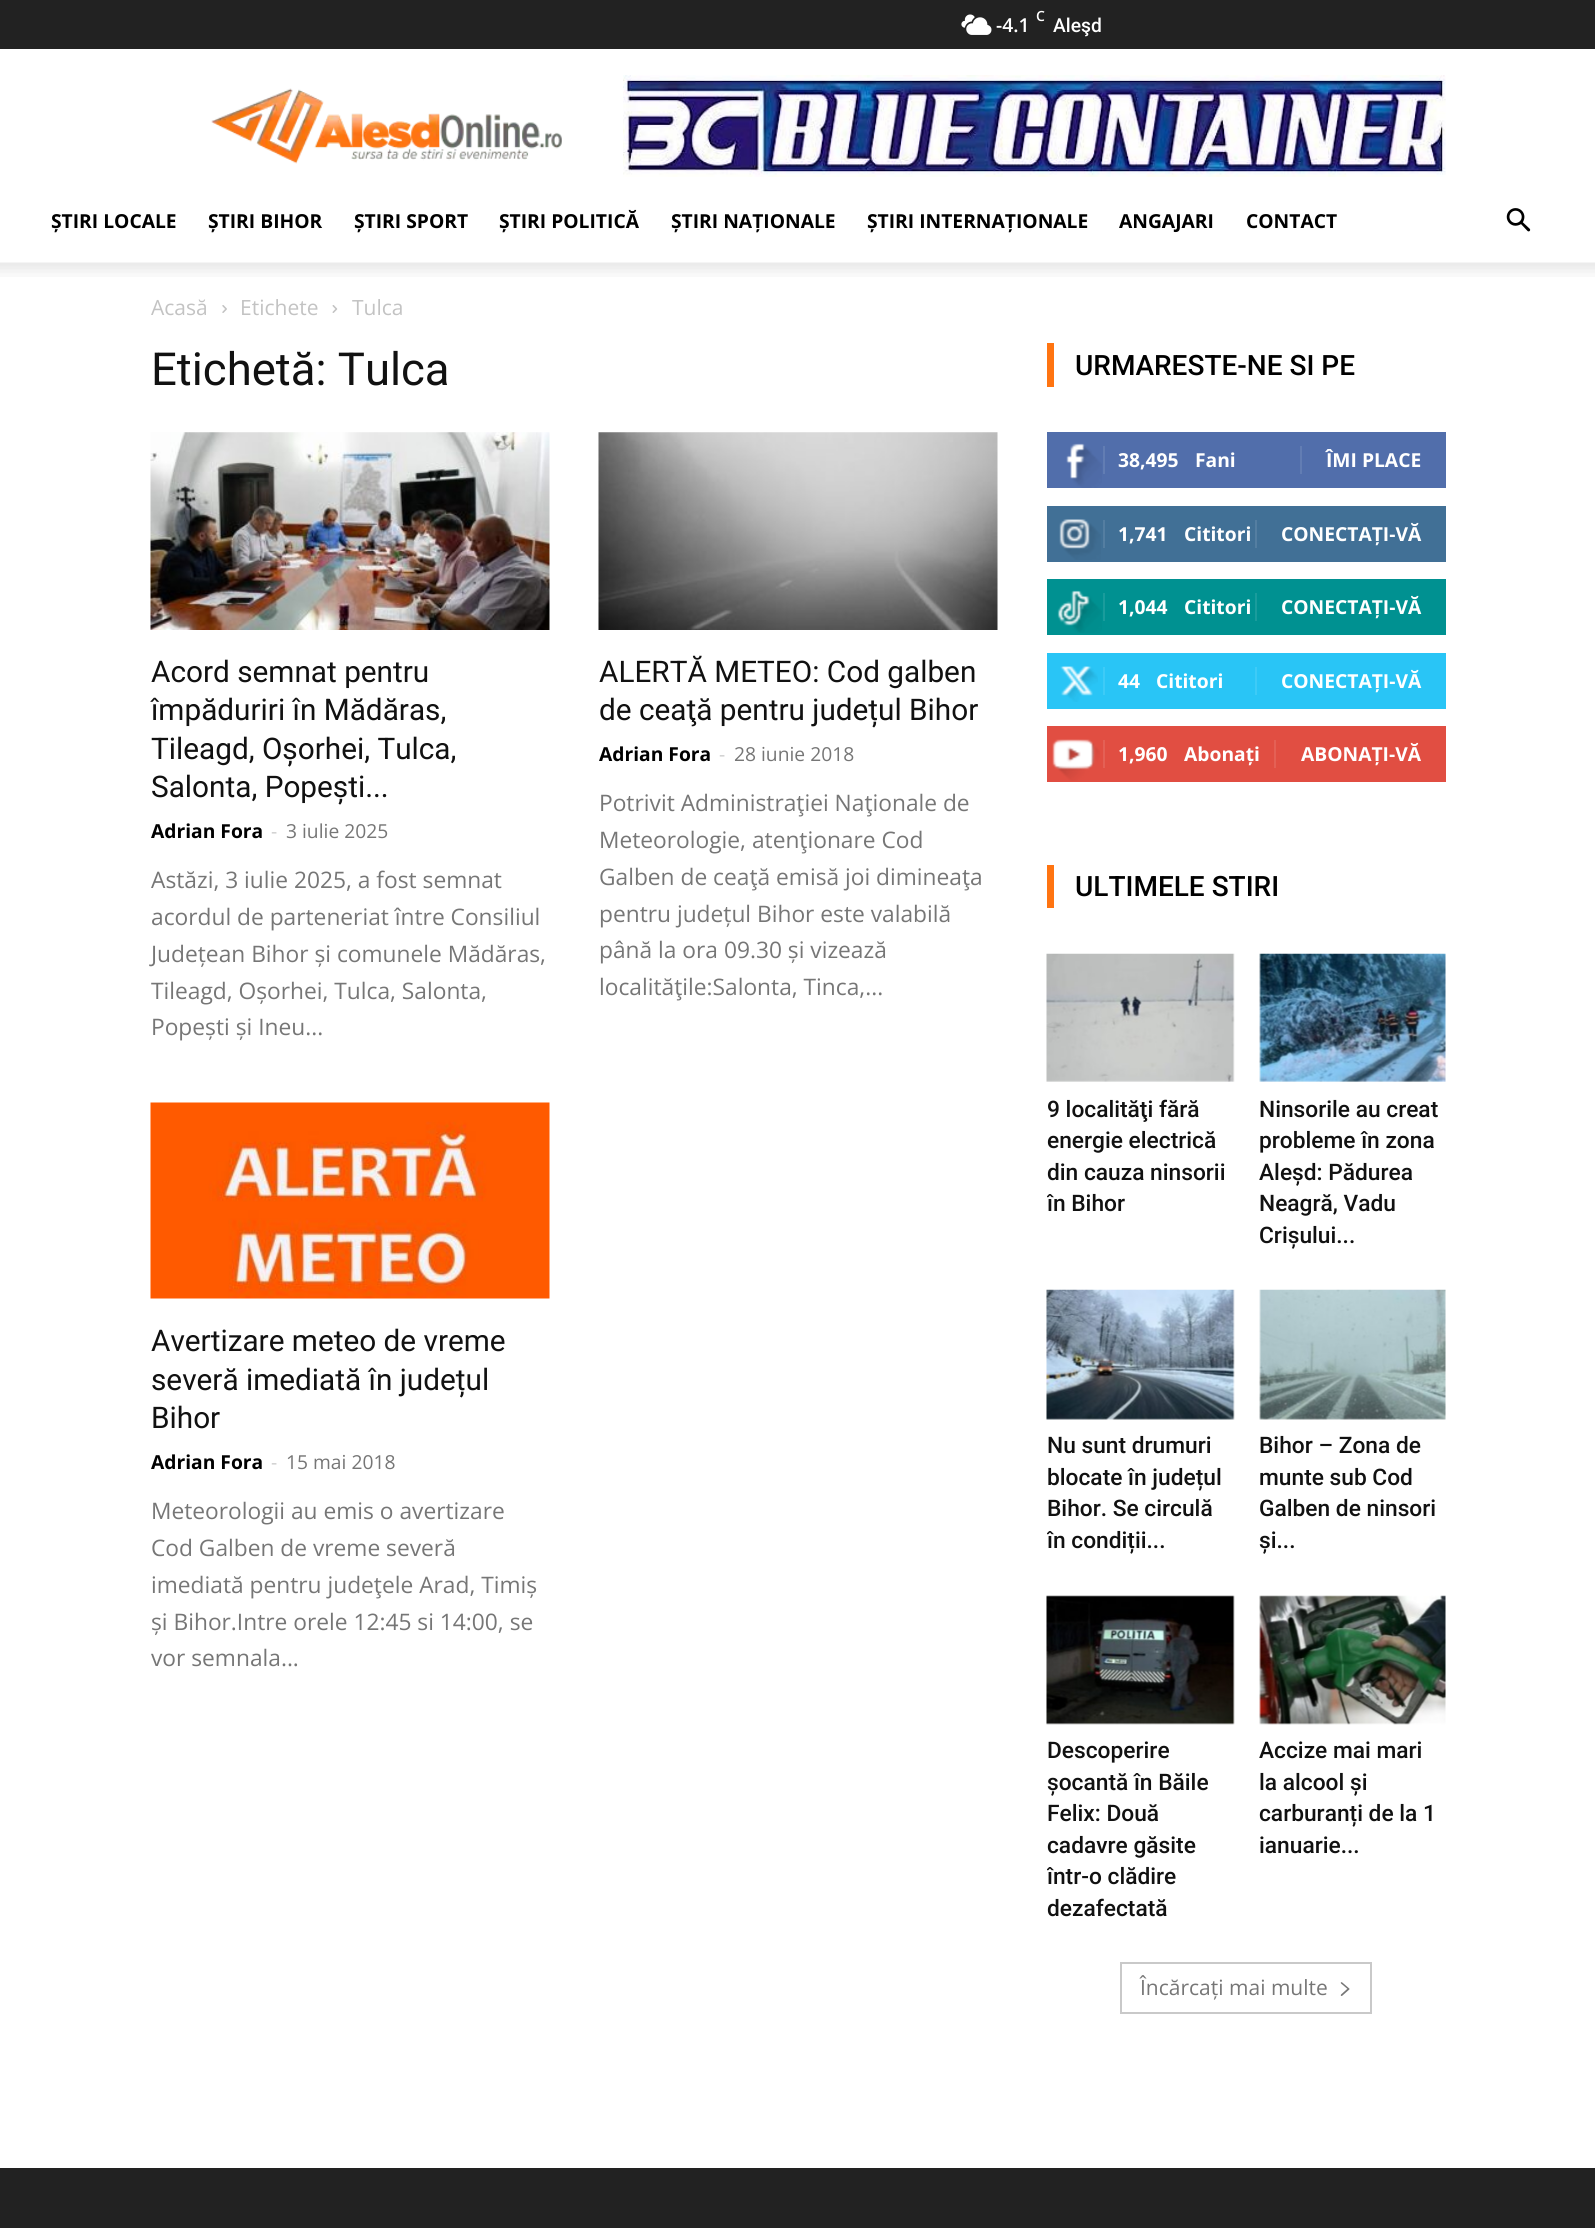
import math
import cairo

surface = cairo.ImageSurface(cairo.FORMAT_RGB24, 1595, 2228)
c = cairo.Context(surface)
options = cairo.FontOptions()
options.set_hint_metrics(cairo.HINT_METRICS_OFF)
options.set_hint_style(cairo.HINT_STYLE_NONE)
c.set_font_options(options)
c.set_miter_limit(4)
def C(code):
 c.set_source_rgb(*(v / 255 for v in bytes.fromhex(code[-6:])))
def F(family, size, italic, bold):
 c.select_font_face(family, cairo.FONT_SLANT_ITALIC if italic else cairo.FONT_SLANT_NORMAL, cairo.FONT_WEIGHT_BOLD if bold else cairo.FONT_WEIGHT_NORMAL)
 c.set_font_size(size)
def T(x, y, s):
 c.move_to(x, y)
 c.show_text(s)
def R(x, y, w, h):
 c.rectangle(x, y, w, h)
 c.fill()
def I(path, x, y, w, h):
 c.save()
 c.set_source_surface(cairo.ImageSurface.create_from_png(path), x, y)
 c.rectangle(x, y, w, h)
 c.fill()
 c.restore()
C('ffffff')
c.paint()
C('222222')
R(0,0,1595,49)
I('1.png',961,14,31,21)
F('Open Sans SemiBold',14,0,0)
C('ffffff')
T(1036,21,'C')
F('Open Sans SemiBold',19.25,0,0)
T(996,32,'-4.1')
F('Roboto Medium',19.25,0,0)
T(1053,32,'Aleşd')
I('2.png',211,88,351,76)
I('3.png',623,75,823,102)
F('Open Sans',19.25,0,1)
C('000000')
T(51,228,'ȘTIRI LOCALE')
T(208,228,'ȘTIRI BIHOR')
T(354,228,'ȘTIRI SPORT')
T(499,228,'ȘTIRI POLITICĂ')
T(671,228,'ȘTIRI NAȚIONALE')
T(867,228,'ȘTIRI INTERNAȚIONALE')
T(1119,228,'ANGAJARI')
T(1246,228,'CONTACT')
I('4.png',1506,208,25,24)
I('5.png',0,262,1595,15)
F('Open Sans',21,0,0)
C('c3c3c3')
T(151,315,'Acasă')
I('6.png',222,305,5,8)
T(240,315,'Etichete')
I('7.png',332,305,6,8)
T(352,315,'Tulca')
F('Roboto',45.5,0,0)
C('111111')
T(151,385,'Etichetă: Tulca')
I('8.png',150,432,400,198)
F('Roboto',29.75,0,0)
T(151,682,'Acord semnat pentru')
T(151,720,'împăduriri în Mădăras,')
T(151,759,'Tileagd, Oșorhei, Tulca,')
T(151,797,'Salonta, Popești...')
F('Open Sans',19.25,0,1)
C('000000')
T(151,838,'Adrian Fora')
F('Open Sans',19.25,0,0)
C('cccccc')
T(271,838,'-')
C('767676')
T(286,838,'3 iulie 2025')
F('Open Sans',22.75,0,0)
T(151,888,'Astăzi, 3 iulie 2025, a fost semnat')
T(151,925,'acordul de parteneriat între Consiliul')
T(151,962,'Județean Bihor și comunele Mădăras,')
T(151,999,'Tileagd, Oșorhei, Tulca, Salonta,')
T(151,1035,'Popești și Ineu...')
I('9.png',598,432,400,198)
F('Roboto',29.75,0,0)
C('111111')
T(599,682,'ALERTĂ METEO: Cod galben')
T(599,720,'de ceaţă pentru județul Bihor')
F('Open Sans',19.25,0,1)
C('000000')
T(599,761,'Adrian Fora')
F('Open Sans',19.25,0,0)
C('cccccc')
T(719,761,'-')
C('767676')
T(734,761,'28 iunie 2018')
F('Open Sans',22.75,0,0)
T(599,811,'Potrivit Administraţiei Naţionale de')
T(599,848,'Meteorologie, atenţionare Cod')
T(599,885,'Galben de ceaţă emisă joi dimineaţa')
T(599,922,'pentru județul Bihor este valabilă')
T(599,958,'până la ora 09.30 și vizează')
T(599,995,'localităţile:Salonta, Tinca,...')
I('10.png',150,1102,400,197)
F('Roboto',29.75,0,0)
C('111111')
T(151,1351,'Avertizare meteo de vreme')
T(151,1390,'severă imediată în județul')
T(151,1428,'Bihor')
F('Open Sans',19.25,0,1)
C('000000')
T(151,1469,'Adrian Fora')
F('Open Sans',19.25,0,0)
C('cccccc')
T(271,1469,'-')
C('767676')
T(286,1469,'15 mai 2018')
F('Open Sans',22.75,0,0)
T(151,1519,'Meteorologii au emis o avertizare')
T(151,1556,'Cod Galben de vreme severă')
T(151,1593,'imediată pentru judeţele Arad, Timiș')
T(151,1630,'și Bihor.Intre orele 12:45 si 14:00, se')
T(151,1666,'vor semnala...')
C('ff7411')
R(1047,343,7,44)
F('Roboto Medium',28,0,0)
C('000000')
T(1075,375,'URMARESTE-NE SI PE')
C('516eab')
R(1047,432,399,56)
I('11.png',1066,443,36,45)
C('627db3')
R(1103,446,2,28)
F('Open Sans',19.25,0,1)
C('ffffff')
T(1118,467,'38,495')
T(1195,467,'Fani')
C('627db3')
R(1300,446,2,28)
C('ffffff')
T(1326,467,'ÎMI PLACE')
C('417096')
R(1047,506,399,56)
I('12.png',1059,519,42,41)
C('547ea1')
R(1103,520,2,28)
C('ffffff')
T(1118,541,'1,741')
T(1184,541,'Cititori')
C('547ea1')
R(1255,520,2,28)
C('ffffff')
T(1281,541,'CONECTAȚI-VĂ')
C('009191')
R(1047,579,399,56)
I('13.png',1057,590,45,43)
C('1a9c9c')
R(1103,593,2,28)
C('ffffff')
T(1118,614,'1,044')
T(1184,614,'Cititori')
C('1a9c9c')
R(1255,593,2,28)
C('ffffff')
T(1281,614,'CONECTAȚI-VĂ')
C('29c5f6')
R(1047,653,399,56)
I('14.png',1060,666,38,36)
C('3ecbf7')
R(1103,667,2,28)
C('ffffff')
T(1118,688,'44')
T(1156,688,'Cititori')
C('3ecbf7')
R(1255,667,2,28)
C('ffffff')
T(1281,688,'CONECTAȚI-VĂ')
C('e14e42')
R(1047,726,399,56)
I('15.png',1052,739,48,42)
C('e46055')
R(1103,740,2,28)
C('ffffff')
T(1118,761,'1,960')
T(1184,761,'Abonați')
C('e46055')
R(1274,740,2,28)
C('ffffff')
T(1301,761,'ABONAȚI-VĂ')
C('ff7411')
R(1047,865,7,43)
F('Roboto Medium',28,0,0)
C('000000')
T(1075,896,'ULTIMELE STIRI')
I('16.png',1046,953,189,129)
F('Roboto Medium',22.75,0,0)
C('111111')
T(1047,1117,'9 localităţi fără')
T(1047,1148,'energie electrică')
T(1047,1180,'din cauza ninsorii')
c.save()
c.rectangle(1047,865,399,1149)
c.clip()
T(1047,1211,'în Bihor')
c.restore()
I('17.png',1259,953,187,129)
T(1259,1117,'Ninsorile au creat')
T(1259,1148,'probleme în zona')
T(1259,1180,'Aleșd: Pădurea')
T(1259,1211,'Neagră, Vadu')
T(1259,1243,'Crișului...')
I('18.png',1046,1289,189,131)
T(1047,1453,'Nu sunt drumuri')
T(1047,1485,'blocate în județul')
T(1047,1516,'Bihor. Se circulă')
c.save()
c.rectangle(1047,865,399,1149)
c.clip()
T(1047,1548,'în condiții...')
c.restore()
I('19.png',1259,1289,187,131)
T(1259,1453,'Bihor – Zona de')
T(1259,1485,'munte sub Cod')
T(1259,1516,'Galben de ninsori')
T(1259,1548,'și...')
I('20.png',1046,1595,189,130)
T(1047,1758,'Descoperire')
T(1047,1790,'șocantă în Băile')
T(1047,1821,'Felix: Două')
T(1047,1853,'cadavre găsite')
c.save()
c.rectangle(1047,865,399,1149)
c.clip()
T(1047,1884,'într-o clădire')
c.restore()
T(1047,1916,'dezafectată')
I('21.png',1259,1595,187,130)
T(1259,1758,'Accize mai mari')
T(1259,1790,'la alcool și')
T(1259,1821,'carburanți de la 1')
T(1259,1853,'ianuarie...')
c.rectangle(1121,1963,250,50)
C('c9c9c9')
c.stroke()
F('Open Sans',21,0,0)
C('767676')
T(1140,1995,'Încărcați mai multe')
I('22.png',1340,1982,10,14)
C('222222')
R(0,2168,1595,60)
surface.write_to_png('o.png')
